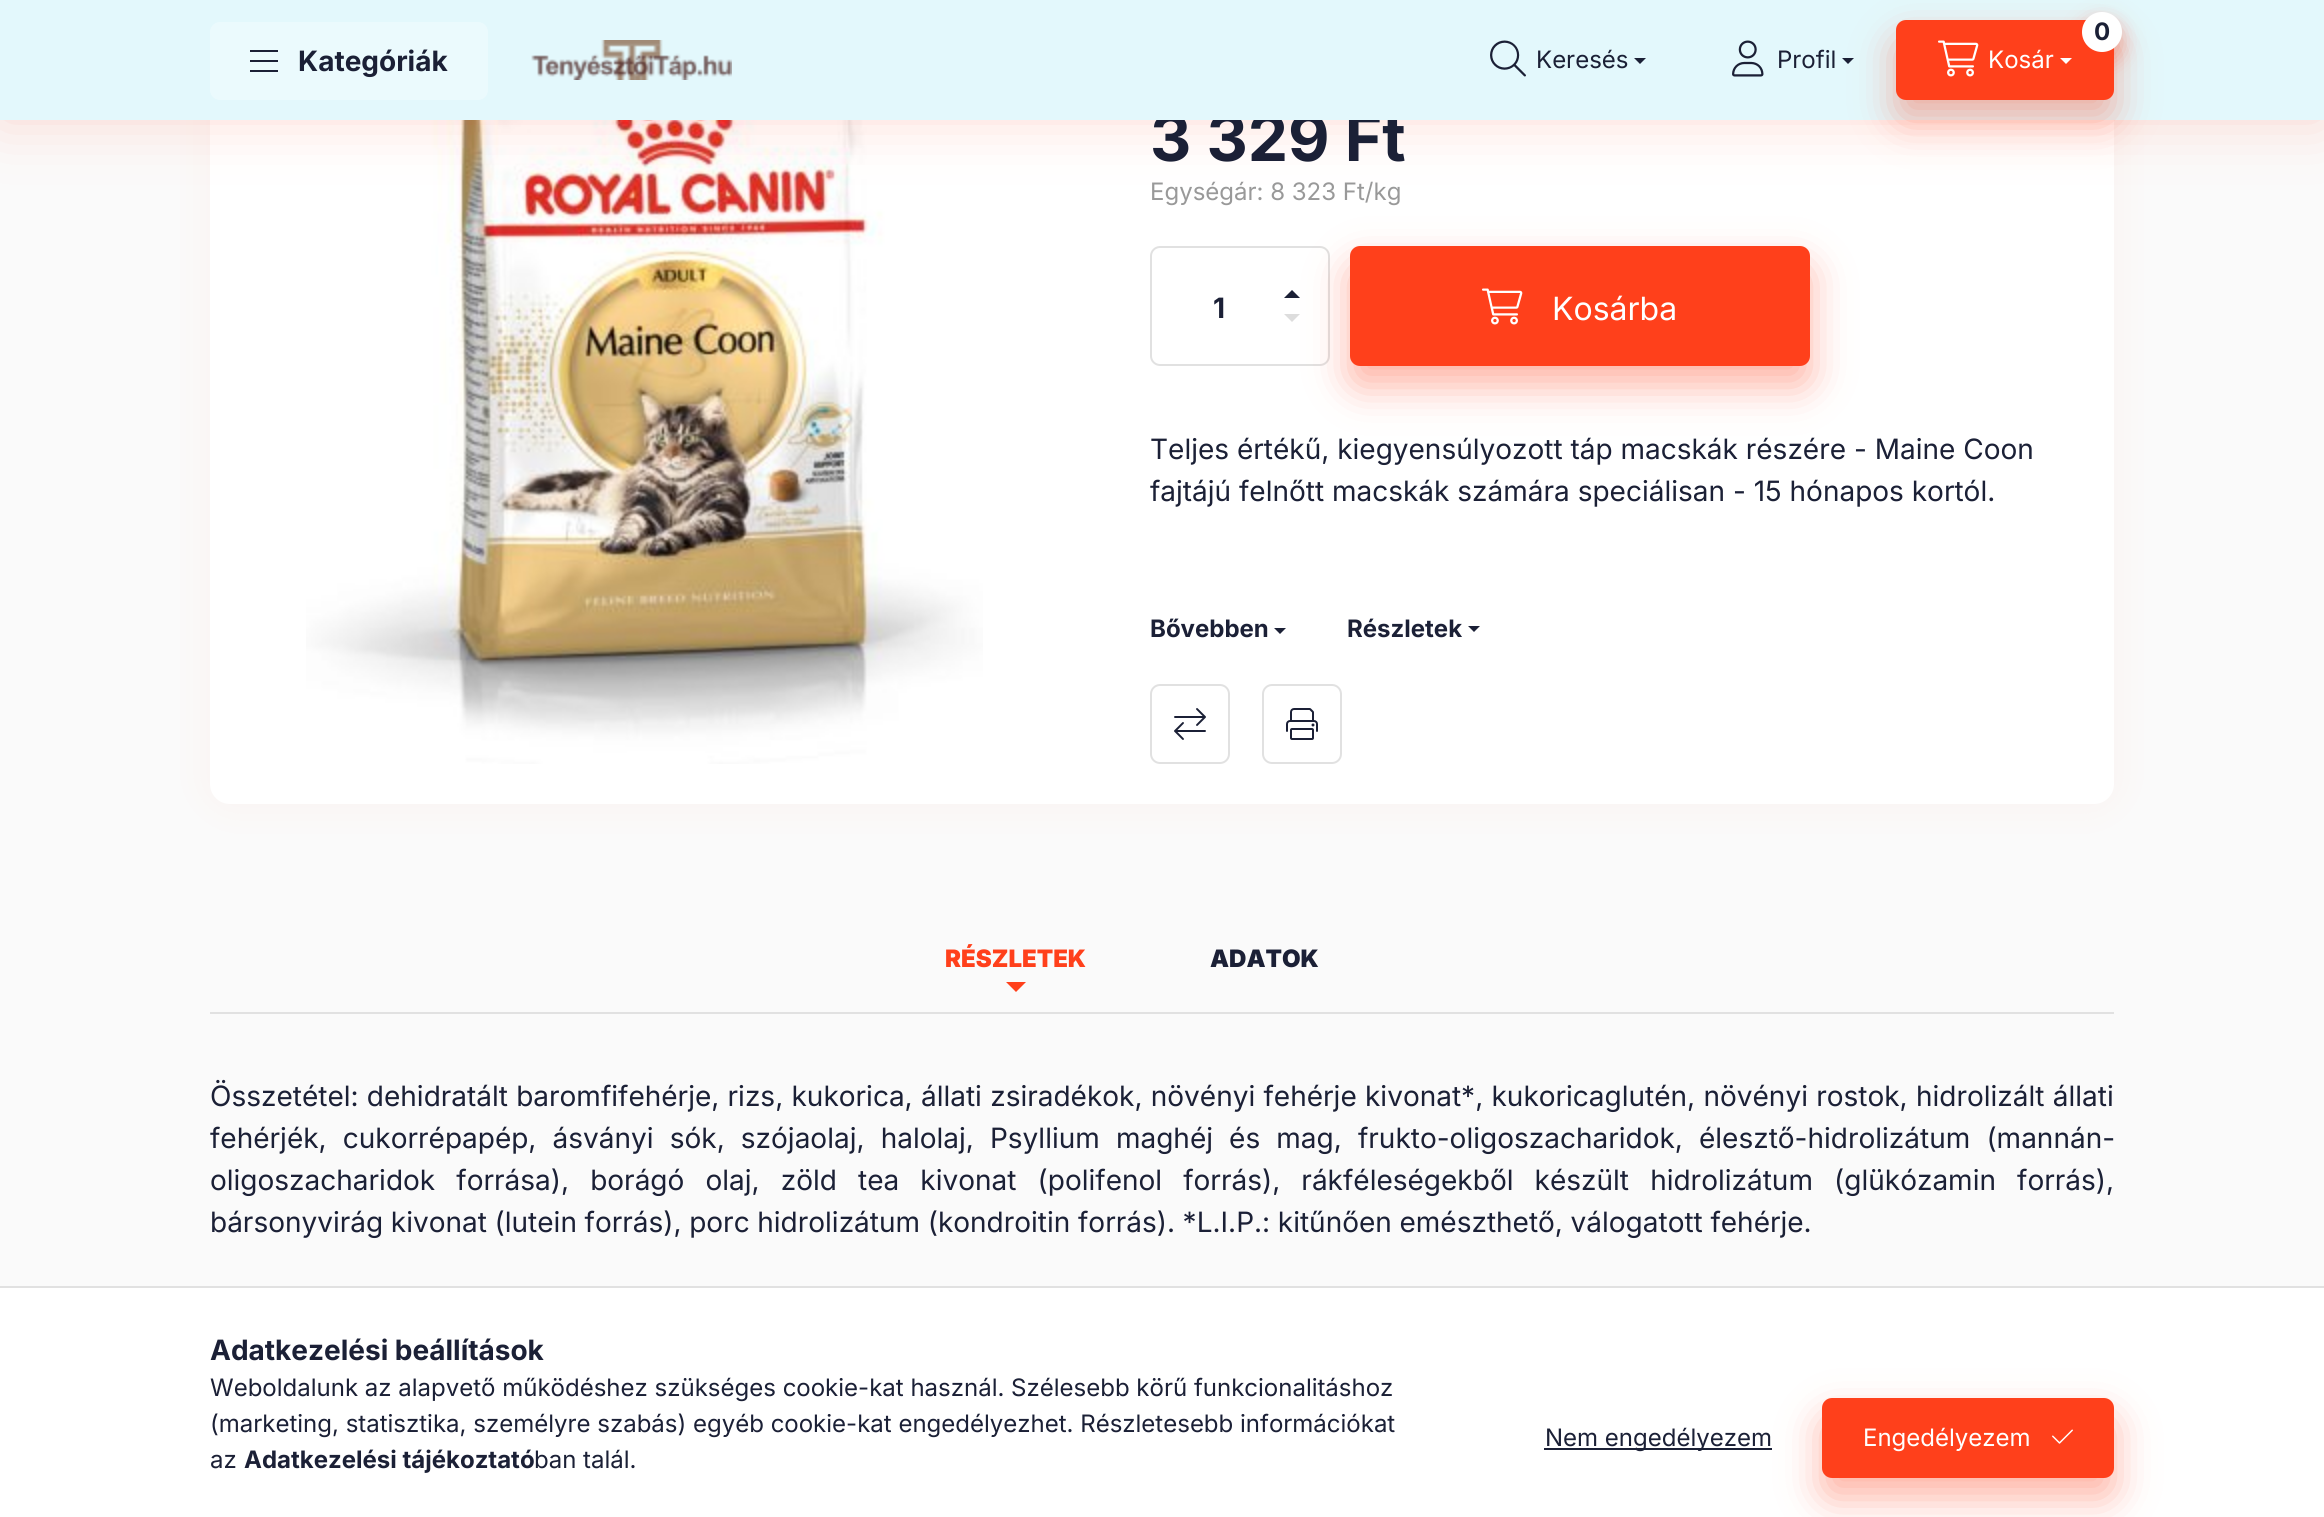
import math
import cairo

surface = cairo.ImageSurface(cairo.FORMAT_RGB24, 2324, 1517)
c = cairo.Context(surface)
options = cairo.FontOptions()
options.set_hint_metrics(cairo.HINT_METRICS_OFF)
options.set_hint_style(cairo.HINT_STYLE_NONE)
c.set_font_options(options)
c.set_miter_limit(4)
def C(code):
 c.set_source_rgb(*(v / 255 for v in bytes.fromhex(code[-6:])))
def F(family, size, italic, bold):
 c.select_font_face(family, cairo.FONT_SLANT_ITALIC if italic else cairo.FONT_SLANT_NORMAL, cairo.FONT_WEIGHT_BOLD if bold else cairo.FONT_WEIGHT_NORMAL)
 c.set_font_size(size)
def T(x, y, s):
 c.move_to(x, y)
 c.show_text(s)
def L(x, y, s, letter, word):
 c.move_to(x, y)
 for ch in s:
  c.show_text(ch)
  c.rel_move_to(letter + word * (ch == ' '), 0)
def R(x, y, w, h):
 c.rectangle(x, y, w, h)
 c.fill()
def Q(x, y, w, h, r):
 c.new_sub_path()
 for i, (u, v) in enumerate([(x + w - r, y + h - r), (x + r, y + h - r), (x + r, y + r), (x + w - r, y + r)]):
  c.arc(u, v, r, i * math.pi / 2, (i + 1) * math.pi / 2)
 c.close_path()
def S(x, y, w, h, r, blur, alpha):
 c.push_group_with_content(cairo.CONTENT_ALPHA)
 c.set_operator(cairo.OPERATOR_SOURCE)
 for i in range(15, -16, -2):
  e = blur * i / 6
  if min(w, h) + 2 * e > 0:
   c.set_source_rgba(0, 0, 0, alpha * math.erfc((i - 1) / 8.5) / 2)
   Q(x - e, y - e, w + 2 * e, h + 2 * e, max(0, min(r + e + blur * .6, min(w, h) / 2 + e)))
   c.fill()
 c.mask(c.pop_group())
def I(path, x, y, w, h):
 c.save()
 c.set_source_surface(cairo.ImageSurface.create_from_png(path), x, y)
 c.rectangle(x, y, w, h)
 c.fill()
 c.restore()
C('fafafa')
c.paint()
C('ff401b')
S(210,-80,1904,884,20,20,.05)
C('ffffff')
Q(210,-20,1904,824,20)
c.fill()
I('5.png',306,120,677,644)
C('ff401b')
S(0,0,2324,120,0,30,.2)
F('Inter',64,0,1)
C('1b2036')
T(1150,161,'3 329 Ft')
C('e3f8fc')
R(0,0,2324,120)
C('ebfafd')
Q(210,22,278,78,10)
c.fill()
C('1b2036')
R(250,50,28,2)
R(250,60,28,2)
R(250,70,28,2)
F('Inter',28,0,1)
T(298,71,'Kategóriák')
I('1.png',531,40,201,40)
I('2.png',1490,40,36,37)
F('Inter',24,0,0)
T(1536,68,'Keresés')
c.new_path()
c.move_to(1634,58)
c.line_to(1646,58)
c.line_to(1640,64)
c.close_path()
c.fill()
I('3.png',1732,40,32,37)
T(1777,68,'Profil')
C('ff401b')
S(1896,40,218,80,10,20,.4)
C('1b2036')
c.new_path()
c.move_to(1842,58)
c.line_to(1854,58)
c.line_to(1848,64)
c.close_path()
c.fill()
C('ff401b')
Q(1896,20,218,80,10)
c.fill()
C('ff401b')
S(2082,22,40,40,20,10,.4)
C('ffffff')
c.arc(2102,32,20,0,2 * math.pi)
c.fill()
F('Inter',24,0,1)
C('1b2036')
T(2094,40,'0')
I('4.png',1938,40,41,37)
F('Inter',24,0,0)
C('ffffff')
T(1988,68,'Kosár')
c.new_path()
c.move_to(2060,58)
c.line_to(2072,58)
c.line_to(2066,64)
c.close_path()
c.fill()
C('999999')
T(1150,200,'Egységár: 8 323 Ft/kg')
Q(1151,247,178,118,9)
C('e1e1e1')
c.stroke()
F('Inter',28,0,1)
C('1b2036')
T(1213,318,'1')
c.new_path()
c.move_to(1300,298)
c.line_to(1284,298)
c.line_to(1292,290)
c.close_path()
c.fill()
C('dddddd')
c.new_path()
c.move_to(1284,314)
c.line_to(1300,314)
c.line_to(1292,322)
c.close_path()
c.fill()
C('ff401b')
S(1350,266,460,120,10,20,.4)
C('ff401b')
Q(1350,246,460,120,10)
c.fill()
I('4.png',1482,288,41,37)
F('Inter',32,0,0)
C('ffffff')
T(1552,320,'Kosárba')
F('Inter',28,0,0)
C('1b2036')
T(1150,459,'Teljes értékű, kiegyensúlyozott táp macskák részére - Maine Coon')
T(1150,501,'fajtájú felnőtt macskák számára speciálisan - 15 hónapos kortól.')
F('Inter',24,0,1)
T(1150,637,'Bővebben')
c.new_path()
c.move_to(1274,628)
c.line_to(1286,628)
c.line_to(1280,634)
c.close_path()
c.fill()
T(1347,637,'Részletek')
c.new_path()
c.move_to(1468,626)
c.line_to(1480,626)
c.line_to(1474,632)
c.close_path()
c.fill()
Q(1151,685,78,78,9)
C('e1e1e1')
c.stroke()
I('6.png',1174,708,32,32)
Q(1263,685,78,78,9)
c.stroke()
I('7.png',1286,708,32,32)
R(210,1012,1904,2)
F('Inter Black',24,0,0)
C('ff401b')
T(945,967,'RÉSZLETEK')
c.new_path()
c.move_to(1006,982)
c.line_to(1026,982)
c.line_to(1016,992)
c.close_path()
c.fill()
C('1b2036')
T(1210,967,'ADATOK')
F('Inter',28,0,0)
L(210,1106,'Összetétel: dehidratált baromfifehérje, rizs, kukorica, állati zsiradékok, növényi fehérje kivonat*, kukoricaglutén, növényi rostok, hidrolizált állati',0,.4)
L(210,1148,'fehérjék, cukorrépapép, ásványi sók, szójaolaj, halolaj, Psyllium maghéj és mag, frukto-oligoszacharidok, élesztő-hidrolizátum (mannán-',0,8.25)
L(210,1190,'oligoszacharidok forrása), borágó olaj, zöld tea kivonat (polifenol forrás), rákféleségekből készült hidrolizátum (glükózamin forrás),',0,13.25)
L(210,1232,'bársonyvirág kivonat (lutein forrás), porc hidrolizátum (kondroitin forrás). *L.I.P.: kitűnően emészthető, válogatott fehérje.',0,-.25)
C('ffffff')
R(0,1288,2324,229)
C('e1e1e1')
R(0,1286,2324,2)
F('Inter',28,0,1)
C('1b2036')
T(210,1360,'Adatkezelési beállítások')
F('Inter',24,0,0)
T(210,1396,'Weboldalunk az alapvető működéshez szükséges cookie-kat használ. Szélesebb körű funkcionalitáshoz')
T(210,1432,'(marketing, statisztika, személyre szabás) egyéb cookie-kat engedélyezhet. Részletesebb információkat')
T(210,1468,'az')
F('Inter',24,0,1)
T(244,1468,'Adatkezelési tájékoztató')
F('Inter',24,0,0)
T(534,1468,'ban talál.')
R(1544,1448,228,2)
T(1545,1446,'Nem engedélyezem')
C('ff401b')
S(1822,1418,292,80,10,20,.4)
C('ff401b')
Q(1823,1399,290,78,9)
c.fill_preserve()
c.stroke()
C('ffffff')
T(1863,1446,'Engedélyezem')
I('8.png',2052,1429,21,15)
surface.write_to_png('o.png')
